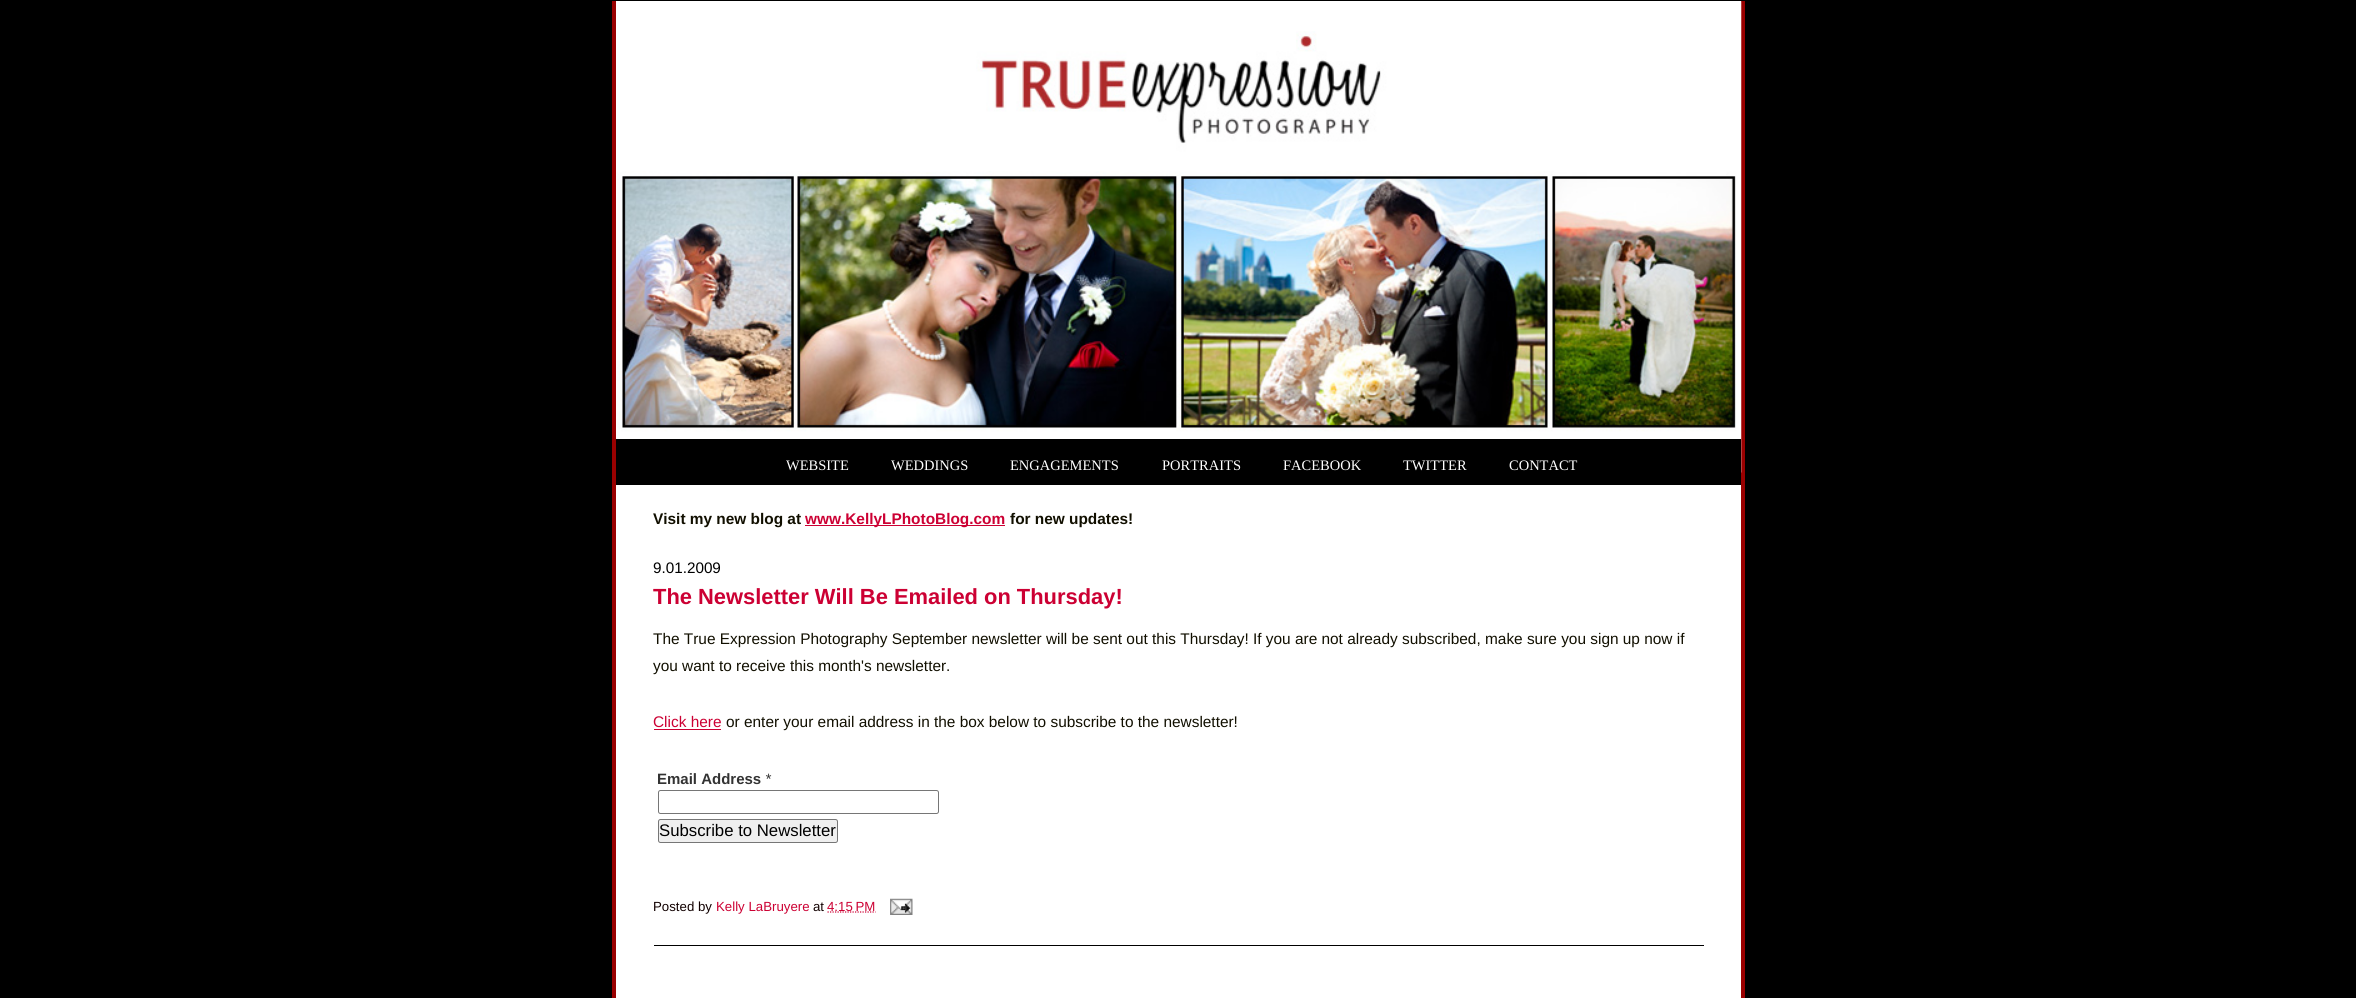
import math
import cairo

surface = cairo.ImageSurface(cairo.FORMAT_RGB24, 2356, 998)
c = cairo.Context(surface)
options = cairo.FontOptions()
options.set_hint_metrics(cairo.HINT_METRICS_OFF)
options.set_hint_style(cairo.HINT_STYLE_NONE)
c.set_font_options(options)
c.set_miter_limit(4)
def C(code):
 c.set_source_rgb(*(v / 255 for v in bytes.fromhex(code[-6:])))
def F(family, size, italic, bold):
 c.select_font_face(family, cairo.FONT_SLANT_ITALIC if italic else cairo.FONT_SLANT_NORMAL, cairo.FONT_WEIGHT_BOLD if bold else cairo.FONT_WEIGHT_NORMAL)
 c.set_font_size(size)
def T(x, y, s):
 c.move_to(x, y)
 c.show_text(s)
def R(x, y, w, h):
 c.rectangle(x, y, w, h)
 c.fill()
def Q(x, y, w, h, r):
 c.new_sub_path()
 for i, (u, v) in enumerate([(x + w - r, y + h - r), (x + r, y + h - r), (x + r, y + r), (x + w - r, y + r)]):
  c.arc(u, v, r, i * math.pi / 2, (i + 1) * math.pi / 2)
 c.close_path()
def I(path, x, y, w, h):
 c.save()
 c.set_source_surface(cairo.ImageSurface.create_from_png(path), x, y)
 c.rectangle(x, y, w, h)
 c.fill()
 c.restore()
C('000000')
c.paint()
C('990000')
R(612,1,1133,997)
C('ffffff')
R(616,1,1125,438)
I('1.png',616,1,1126,472)
C('000000')
R(616,439,1125,46)
F('Liberation Serif',14.5,0,0)
C('ffffff')
T(786,470,'WEBSITE')
T(891,470,'WEDDINGS')
T(1010,470,'ENGAGEMENTS')
T(1162,470,'PORTRAITS')
T(1283,470,'FACEBOOK')
T(1403,470,'TWITTER')
T(1509,470,'CONTACT')
R(616,485,1125,513)
F('Liberation Sans',15.4,0,1)
C('110f00')
T(653,524,'Visit my new blog at')
C('cc0033')
R(805,525,200,1)
T(805,524,'www.KellyLPhotoBlog.com')
C('110f00')
T(1010,524,'for new updates!')
F('Liberation Sans',15.25,0,0)
C('000000')
T(653,573,'9.01.2009')
F('Liberation Sans',21.9,0,1)
C('cc0033')
T(653,604,'The Newsletter Will Be Emailed on Thursday!')
F('Liberation Sans',15.4,0,0)
C('110f00')
T(653,644,'The True Expression Photography September newsletter will be sent out this Thursday!')
T(1253,644,'If you are not already subscribed, make sure you sign up now if')
T(653,671,'you want to receive this month\'s newsletter.')
C('cc0033')
T(653,727,'Click here')
R(654,729,67,1)
C('110f00')
T(726,727,'or enter your email address in the box below to subscribe to the newsletter!')
F('Liberation Sans',15,0,1)
C('333333')
T(657,784,'Email Address')
F('Liberation Sans',15,1,0)
T(765,784,'*')
Q(658.5,790.5,280,23,2)
C('767676')
c.set_line_width(1)
c.stroke()
C('efefef')
Q(658.5,819.5,179,23,2)
c.fill_preserve()
C('767676')
c.stroke()
F('Liberation Sans',16.75,0,0)
C('000000')
T(659,836,'Subscribe to Newsletter')
R(654,945,1050,1)
F('Liberation Sans',13.25,0,0)
C('110000')
T(653,911,'Posted by')
C('cc0033')
T(716,911,'Kelly LaBruyere')
C('110000')
T(813,911,'at')
c.new_path()
c.move_to(827.5,912)
c.line_to(875.5,912)
C('cc0033')
c.set_line_width(1.2)
c.set_dash([1.25,1.25])
c.stroke()
T(827,911,'4:15 PM')
I('2.png',890,898,23,17)
surface.write_to_png('o.png')
